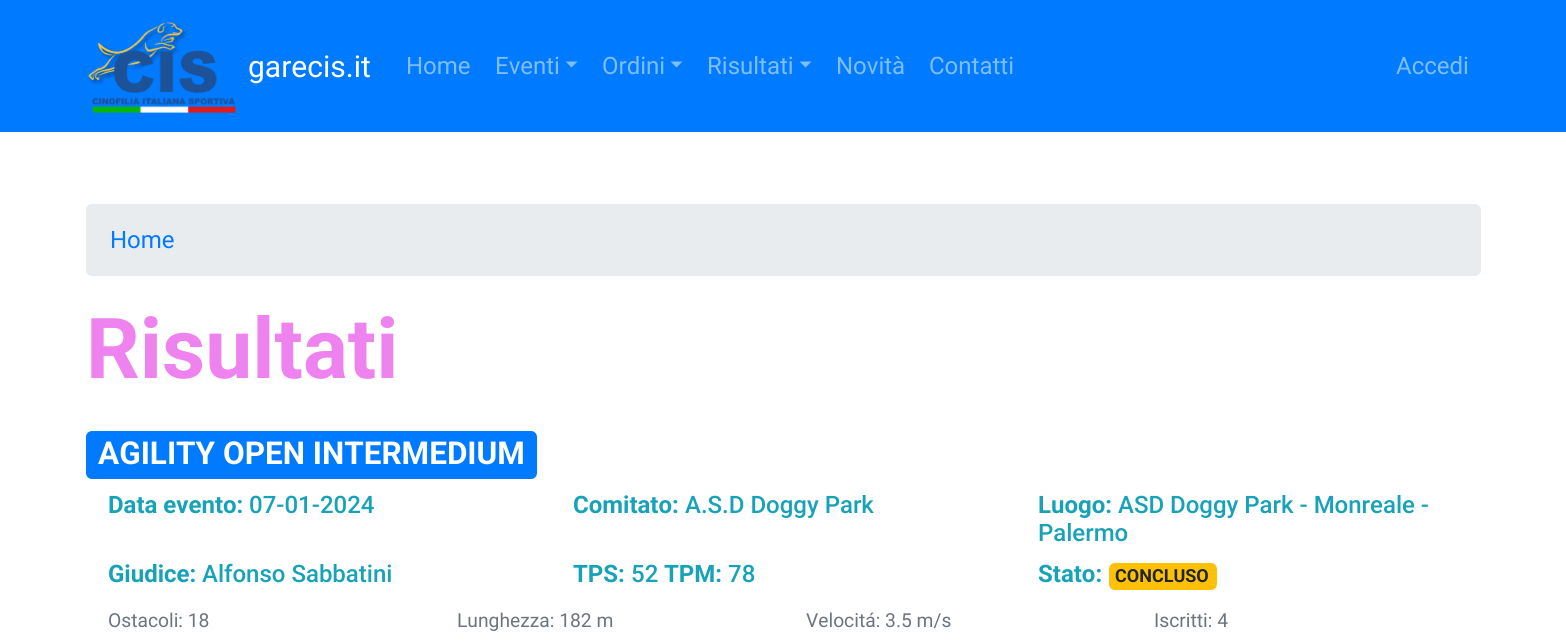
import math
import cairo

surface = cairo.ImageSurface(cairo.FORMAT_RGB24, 1566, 643)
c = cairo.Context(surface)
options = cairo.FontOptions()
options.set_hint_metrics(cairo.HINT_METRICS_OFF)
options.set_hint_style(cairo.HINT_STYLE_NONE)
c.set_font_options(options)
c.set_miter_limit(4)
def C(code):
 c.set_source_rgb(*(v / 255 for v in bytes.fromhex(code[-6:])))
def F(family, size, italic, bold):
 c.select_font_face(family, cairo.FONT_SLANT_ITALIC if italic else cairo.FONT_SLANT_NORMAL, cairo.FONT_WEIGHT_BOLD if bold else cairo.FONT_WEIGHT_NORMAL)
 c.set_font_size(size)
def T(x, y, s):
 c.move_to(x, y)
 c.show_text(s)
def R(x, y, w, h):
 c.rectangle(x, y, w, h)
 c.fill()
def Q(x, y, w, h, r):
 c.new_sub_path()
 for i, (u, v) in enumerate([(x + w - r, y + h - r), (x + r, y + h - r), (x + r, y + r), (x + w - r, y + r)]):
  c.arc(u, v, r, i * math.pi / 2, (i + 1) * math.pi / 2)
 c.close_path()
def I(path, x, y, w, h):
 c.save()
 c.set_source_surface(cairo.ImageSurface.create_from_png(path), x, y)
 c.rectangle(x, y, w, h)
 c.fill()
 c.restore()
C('ffffff')
c.paint()
C('007bff')
R(0,0,1566,132)
I('1.png',88,22,148,91)
F('Roboto',30,0,0)
C('ffffff')
T(248,77,'garecis.it')
F('Roboto',24,0,0)
C('80bdff')
T(406,74,'Home')
T(495,74,'Eventi')
c.new_path()
c.move_to(565.5,61.5)
c.line_to(577.5,61.5)
c.line_to(571.5,67.5)
c.close_path()
c.fill()
T(602,74,'Ordini')
c.new_path()
c.move_to(670.5,61.5)
c.line_to(682.5,61.5)
c.line_to(676.5,67.5)
c.close_path()
c.fill()
T(707,74,'Risultati')
c.new_path()
c.move_to(799.5,61.5)
c.line_to(811.5,61.5)
c.line_to(805.5,67.5)
c.close_path()
c.fill()
T(836,74,'Novità')
T(929,74,'Contatti')
T(1396,74,'Accedi')
C('e9ecef')
Q(86,204,1395,72,6)
c.fill()
C('007bff')
T(110,248,'Home')
F('Roboto',84,0,1)
C('ee82ee')
T(86,378,'Risultati')
C('007bff')
Q(86,431,451,48,6)
c.fill()
F('Roboto',31.5,0,1)
C('ffffff')
T(98,464,'AGILITY OPEN INTERMEDIUM')
F('Roboto',24,0,1)
C('17a2b8')
T(108,513,'Data evento:')
F('Roboto Medium',24,0,0)
T(249,513,'07-01-2024')
F('Roboto',24,0,1)
T(573,513,'Comitato:')
F('Roboto Medium',24,0,0)
T(685,513,'A.S.D Doggy Park')
F('Roboto',24,0,1)
T(1038,513,'Luogo:')
F('Roboto Medium',24,0,0)
T(1118,513,'ASD Doggy Park - Monreale -')
T(1038,541,'Palermo')
F('Roboto',24,0,1)
T(108,582,'Giudice:')
F('Roboto Medium',24,0,0)
T(202,582,'Alfonso Sabbatini')
F('Roboto',24,0,1)
T(573,582,'TPS:')
F('Roboto Medium',24,0,0)
T(631,582,'52')
F('Roboto',24,0,1)
T(664,582,'TPM:')
F('Roboto Medium',24,0,0)
T(728,582,'78')
F('Roboto',24,0,1)
T(1038,582,'Stato:')
C('ffc107')
Q(1109,563,108,27,6)
c.fill()
F('Roboto',18,0,1)
C('212529')
T(1115,582,'CONCLUSO')
F('Roboto',19.25,0,0)
C('6c757d')
T(108,627,'Ostacoli: 18')
T(457,627,'Lunghezza: 182 m')
T(806,627,'Velocitá: 3.5 m/s')
T(1154,627,'Iscritti: 4')
surface.write_to_png('o.png')
